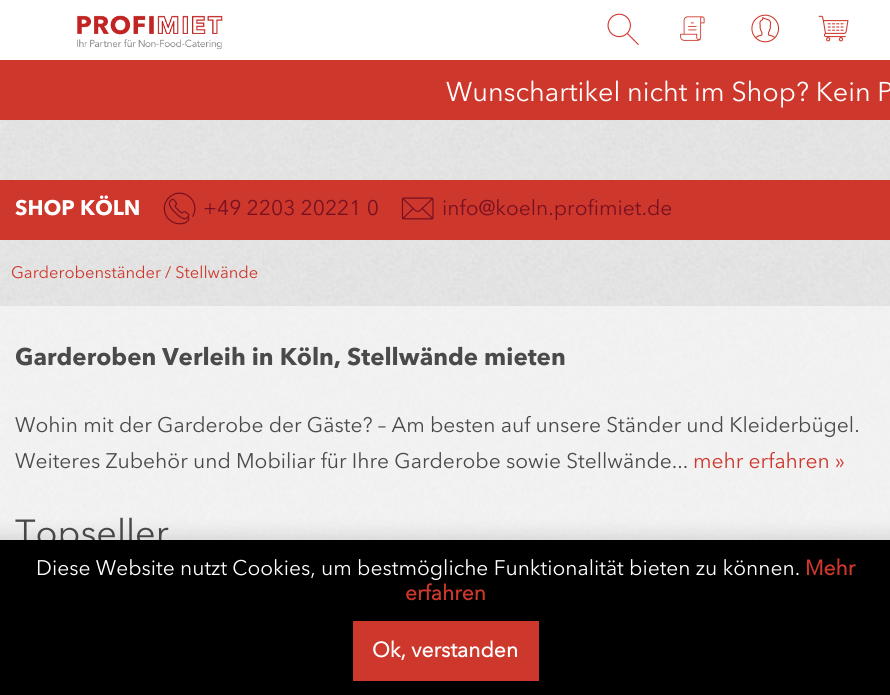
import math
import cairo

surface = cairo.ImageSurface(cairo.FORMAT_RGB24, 890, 695)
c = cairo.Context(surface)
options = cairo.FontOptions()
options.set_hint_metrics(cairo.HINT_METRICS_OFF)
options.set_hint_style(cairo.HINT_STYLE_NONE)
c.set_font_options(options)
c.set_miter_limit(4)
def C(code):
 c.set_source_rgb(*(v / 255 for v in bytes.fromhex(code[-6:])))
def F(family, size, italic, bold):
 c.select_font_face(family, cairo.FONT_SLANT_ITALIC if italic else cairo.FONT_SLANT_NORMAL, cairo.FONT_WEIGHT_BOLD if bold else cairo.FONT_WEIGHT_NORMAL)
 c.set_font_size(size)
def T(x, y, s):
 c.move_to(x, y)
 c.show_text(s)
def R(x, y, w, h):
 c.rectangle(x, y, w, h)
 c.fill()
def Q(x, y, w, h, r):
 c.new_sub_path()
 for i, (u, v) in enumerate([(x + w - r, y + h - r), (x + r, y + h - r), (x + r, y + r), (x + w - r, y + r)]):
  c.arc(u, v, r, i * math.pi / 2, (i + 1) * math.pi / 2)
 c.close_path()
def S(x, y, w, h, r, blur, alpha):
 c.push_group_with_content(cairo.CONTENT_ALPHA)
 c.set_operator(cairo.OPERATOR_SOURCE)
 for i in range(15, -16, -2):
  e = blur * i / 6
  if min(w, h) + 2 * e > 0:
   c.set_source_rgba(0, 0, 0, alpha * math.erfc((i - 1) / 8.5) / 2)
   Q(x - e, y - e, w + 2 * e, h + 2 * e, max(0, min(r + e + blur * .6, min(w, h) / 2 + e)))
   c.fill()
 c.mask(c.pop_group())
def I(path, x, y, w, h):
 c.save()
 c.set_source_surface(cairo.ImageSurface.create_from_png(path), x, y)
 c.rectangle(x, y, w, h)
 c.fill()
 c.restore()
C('ffffff')
c.paint()
I('1.png',0,120,890,420)
I('2.png',77,15,146,35)
I('3.png',607,13,32,32)
I('4.png',680,16,25,25)
I('5.png',751,14,29,29)
I('6.png',818,15,31,27)
C('ce372c')
R(0,60,890,60)
F('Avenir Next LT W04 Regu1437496',27,0,0)
C('ffffff')
T(446,101,'Wunschartikel nicht im Shop? Kein P')
C('ce372c')
R(0,180,890,60)
F('Avenir Next',21,0,1)
C('ffffff')
T(15,215,'SHOP KÖLN')
I('7.png',163,192,33,33)
F('Avenir Next LT W04 Regu1437496',21,0,0)
C('771121')
T(203,215,'+49 2203 20221 0')
I('8.png',401,197,33,23)
T(442,215,'info@koeln.profimiet.de')
F('Avenir Next LT W04 Regu1437496',16.5,0,0)
C('ce372c')
T(11,278,'Garderobenständer / Stellwände')
c.set_source_rgba(1,1,1,0.5)
R(0,306,890,234)
F('Avenir Next',24,0,1)
C('4a4a4a')
T(15,365,'Garderoben Verleih in Köln, Stellwände mieten')
F('Avenir Next LT W04 Regu1437496',21,0,0)
T(15,432,'Wohin mit der Garderobe der Gäste? – Am besten auf unsere Ständer und Kleiderbügel.')
T(15,468,'Weiteres Zubehör und Mobiliar für Ihre Garderobe sowie Stellwände...')
C('ce372c')
T(693,468,'mehr erfahren »')
F('Avenir Next LT W04 Regu1437496',36,0,0)
C('4a4a4a')
T(15,545,'Topseller')
C('000000')
S(-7,533,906,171,0,7.5,.1)
C('000000')
R(0,540,890,155)
F('Avenir Next LT W04 Regu1437496',21,0,0)
C('ffffff')
T(36,575,'Diese Website nutzt Cookies, um bestmögliche Funktionalität bieten zu können.')
F('Avenir Next LT W04 Regu1437496',21,0,1)
C('ce372c')
T(805,575,'Mehr')
T(405,600,'erfahren')
R(353,621,186,60)
C('ffffff')
T(372,657,'Ok, verstanden')
surface.write_to_png('o.png')
